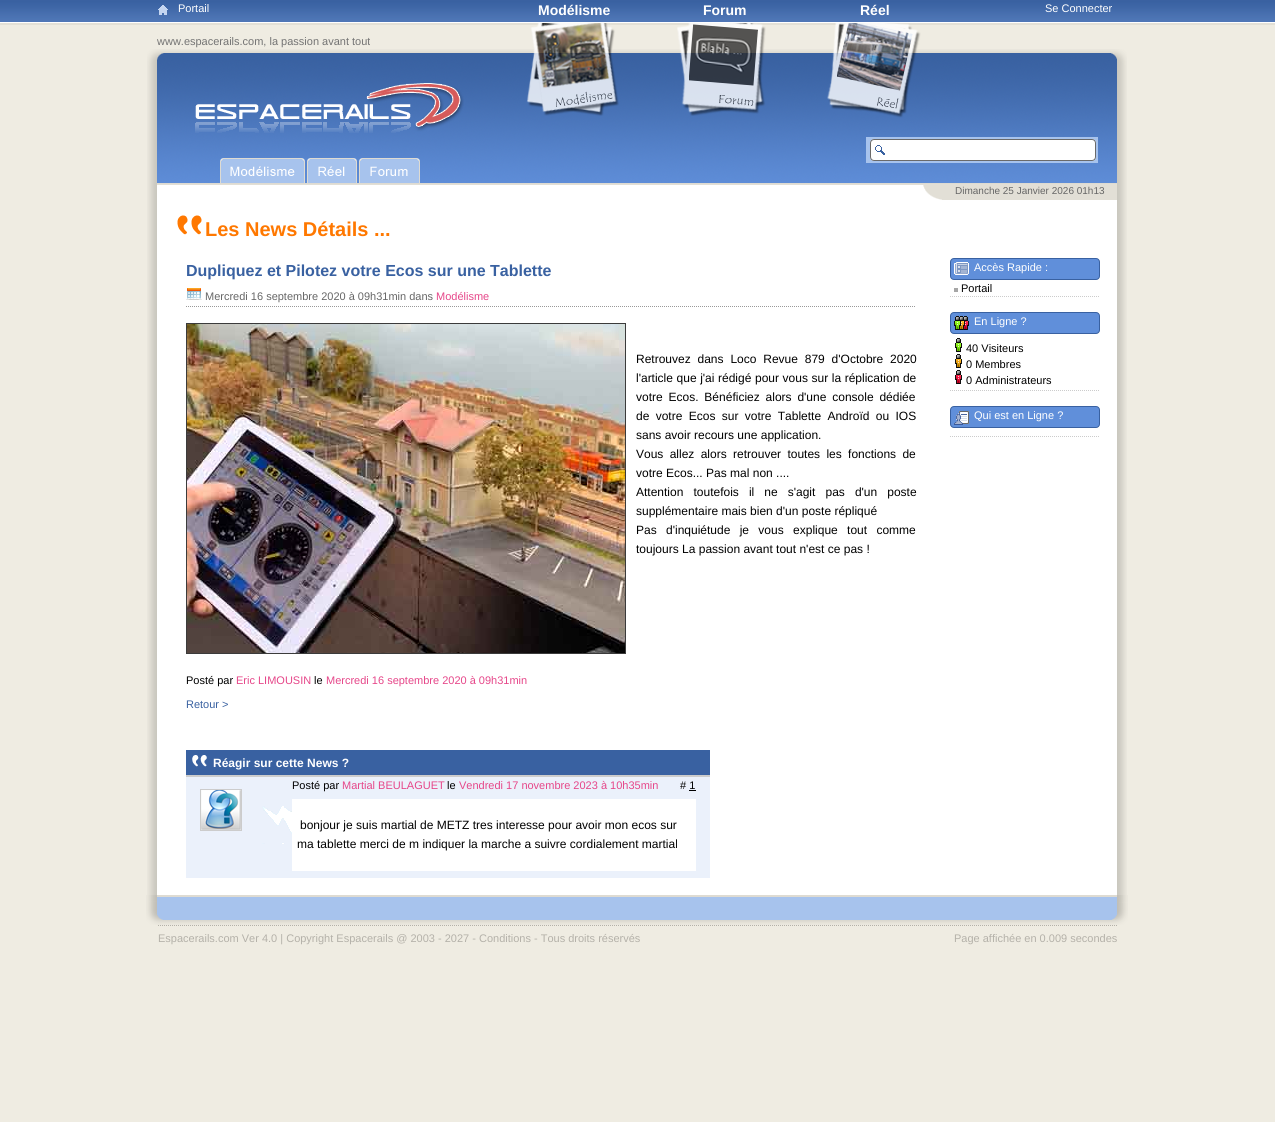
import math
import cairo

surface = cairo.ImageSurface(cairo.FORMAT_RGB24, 1275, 1122)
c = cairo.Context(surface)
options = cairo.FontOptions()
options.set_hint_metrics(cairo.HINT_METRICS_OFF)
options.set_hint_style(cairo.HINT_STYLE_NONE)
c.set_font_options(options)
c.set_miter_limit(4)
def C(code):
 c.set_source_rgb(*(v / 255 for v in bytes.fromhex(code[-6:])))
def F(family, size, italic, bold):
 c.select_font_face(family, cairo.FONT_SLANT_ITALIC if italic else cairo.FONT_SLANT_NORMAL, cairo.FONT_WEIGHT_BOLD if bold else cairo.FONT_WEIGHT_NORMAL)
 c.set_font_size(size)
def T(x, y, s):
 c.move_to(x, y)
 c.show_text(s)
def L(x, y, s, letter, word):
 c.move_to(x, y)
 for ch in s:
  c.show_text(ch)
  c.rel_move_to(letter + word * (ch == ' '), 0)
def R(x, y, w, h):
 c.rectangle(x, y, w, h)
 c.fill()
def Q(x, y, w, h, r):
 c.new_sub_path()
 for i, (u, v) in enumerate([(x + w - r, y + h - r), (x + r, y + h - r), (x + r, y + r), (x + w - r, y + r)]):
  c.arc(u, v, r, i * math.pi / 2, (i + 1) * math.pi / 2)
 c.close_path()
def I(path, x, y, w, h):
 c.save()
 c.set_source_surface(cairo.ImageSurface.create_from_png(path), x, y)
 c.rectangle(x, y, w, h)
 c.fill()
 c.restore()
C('efece2')
c.paint()
I('1.png',0,0,1275,25)
I('2.png',158,5,10,10)
F('Liberation Sans',11,0,0)
C('ffffff')
T(178,12,'Portail')
I('6.png',147,49,980,136)
I('3.png',526,23,93,93)
F('Liberation Sans',14,0,1)
T(538,15,'Modélisme')
I('4.png',677,23,89,93)
T(703,15,'Forum')
I('5.png',827,23,94,95)
T(860,15,'Réel')
F('Liberation Sans',11,0,0)
T(1045,12,'Se Connecter')
C('737373')
T(157,45,'www.espacerails.com, la passion avant tout')
I('7.png',195,83,269,50)
C('a7c3ed')
R(866,137,232,26)
C('ffffff')
Q(870,139,226,22,4)
c.fill()
I('8.png',875,145,10,10)
Q(870.5,139.5,225,21,3.5)
C('6a6a6a')
c.set_line_width(1)
c.stroke()
I('9.png',220,158,85,25)
I('10.png',307,158,50,25)
I('11.png',359,158,61,25)
I('12.png',147,185,980,15)
C('e2dfd6')
R(942,185,175,15)
I('13.png',923,185,19,15)
F('Liberation Sans',10,0,0)
C('666666')
T(955,194,'Dimanche 25 Janvier 2026 01h13')
I('14.png',147,200,980,695)
I('15.png',177,215,25,20)
F('Liberation Sans',20,0,1)
C('ff7800')
T(205,236,'Les News Détails ...')
F('Liberation Sans',16,0,1)
C('3961a1')
T(186,276,'Dupliquez et Pilotez votre Ecos sur une Tablette')
c.new_path()
c.move_to(186,306.5)
c.line_to(916,306.5)
C('999999')
c.set_dash([1,1])
c.stroke()
I('16.png',186,288,16,12)
F('Liberation Sans',11,0,0)
C('666666')
T(205,300,'Mercredi 16 septembre 2020 à 09h31min dans')
C('e64689')
T(436,300,'Modélisme')
c.rectangle(186.5,323.5,439,330)
C('3b3b3b')
c.set_dash([])
c.stroke()
I('17.png',187,324,438,329)
F('Liberation Sans',12,0,0)
C('000000')
L(636,363,'Retrouvez dans Loco Revue 879 d\'Octobre 2020',0,3.5)
L(636,382,'l\'article que j\'ai rédigé pour vous sur la réplication de',0,.25)
L(636,401,'votre Ecos. Bénéficiez alors d\'une console dédiée',0,2.5)
L(636,420,'de votre Ecos sur votre Tablette Androïd ou IOS',0,3)
T(636,439,'sans avoir recours une application.')
L(636,458,'Vous allez alors retrouver toutes les fonctions de',0,3)
T(636,477,'votre Ecos... Pas mal non ....')
L(636,496,'Attention toutefois il ne s\'agit pas d\'un poste',0,6.75)
T(636,515,'supplémentaire mais bien d\'un poste répliqué')
L(636,534,'Pas d\'inquiétude je vous explique tout comme',0,6)
T(636,553,'toujours La passion avant tout n\'est ce pas !')
F('Liberation Sans',11,0,0)
T(186,684,'Posté par')
C('e64689')
T(236,684,'Eric LIMOUSIN')
C('000000')
T(314,684,'le')
C('e64689')
T(326,684,'Mercredi 16 septembre 2020 à 09h31min')
C('3961a1')
T(186,708,'Retour >')
R(186,750,524,25)
C('cccccc')
R(186,775,524,2)
I('18.png',192,755,15,12)
F('Liberation Sans',12,0,1)
C('ffffff')
T(213,767,'Réagir sur cette News ?')
C('ebf1fb')
R(186,777,524,101)
c.rectangle(200.5,789.5,41,41)
C('cccccc')
c.stroke()
I('19.png',201,790,40,40)
F('Liberation Sans',11,0,0)
C('000000')
T(292,789,'Posté par')
C('e64689')
T(342,789,'Martial BEULAGUET')
C('000000')
T(447,789,'le')
C('e64689')
T(459,789,'Vendredi 17 novembre 2023 à 10h35min')
C('000000')
T(680,789,'# 1')
R(689,790,7,1)
I('20.png',262,806,30,38)
C('ffffff')
R(292,799,404,72)
F('Liberation Sans',12,0,0)
C('000000')
T(300,829,'bonjour je suis martial de METZ tres interesse pour avoir mon ecos sur')
T(297,848,'ma tablette merci de m indiquer la marche a suivre cordialement martial')
C('608fda')
Q(950.5,258.5,149,21,3.5)
c.fill_preserve()
C('3961a1')
c.stroke()
I('21.png',954,262,15,13)
F('Liberation Sans',11,0,0)
C('ffffff')
T(974,271,'Accès Rapide :')
c.new_path()
c.move_to(950,296.5)
c.line_to(1100,296.5)
C('cccccc')
c.set_dash([1,1])
c.stroke()
C('a6a6a6')
R(954,288,4,4)
C('000000')
T(961,292,'Portail')
C('608fda')
Q(950.5,312.5,149,21,3.5)
c.fill_preserve()
C('3961a1')
c.set_dash([])
c.stroke()
I('22.png',954,316,15,14)
C('ffffff')
T(974,325,'En Ligne ?')
c.new_path()
c.move_to(950,390.5)
c.line_to(1100,390.5)
C('cccccc')
c.set_dash([1,1])
c.stroke()
I('23.png',955,338,7,14)
C('000000')
T(966,352,'40 Visiteurs')
I('24.png',955,354,7,14)
T(966,368,'0 Membres')
I('25.png',955,370,7,14)
T(966,384,'0 Administrateurs')
C('608fda')
Q(950.5,406.5,149,21,3.5)
c.fill_preserve()
C('3961a1')
c.set_dash([])
c.stroke()
I('26.png',954,411,15,14)
C('ffffff')
T(974,419,'Qui est en Ligne ?')
c.new_path()
c.move_to(950,436.5)
c.line_to(1100,436.5)
C('cccccc')
c.set_dash([1,1])
c.stroke()
I('27.png',146,895,982,30)
c.new_path()
c.move_to(158,925.5)
c.line_to(1118,925.5)
C('b4b1a9')
c.stroke()
T(158,942,'Espacerails.com Ver 4.0 | Copyright Espacerails @ 2003 - 2027 - Conditions - Tous droits réservés')
T(954,942,'Page affichée en 0.009 secondes')
surface.write_to_png('o.png')
